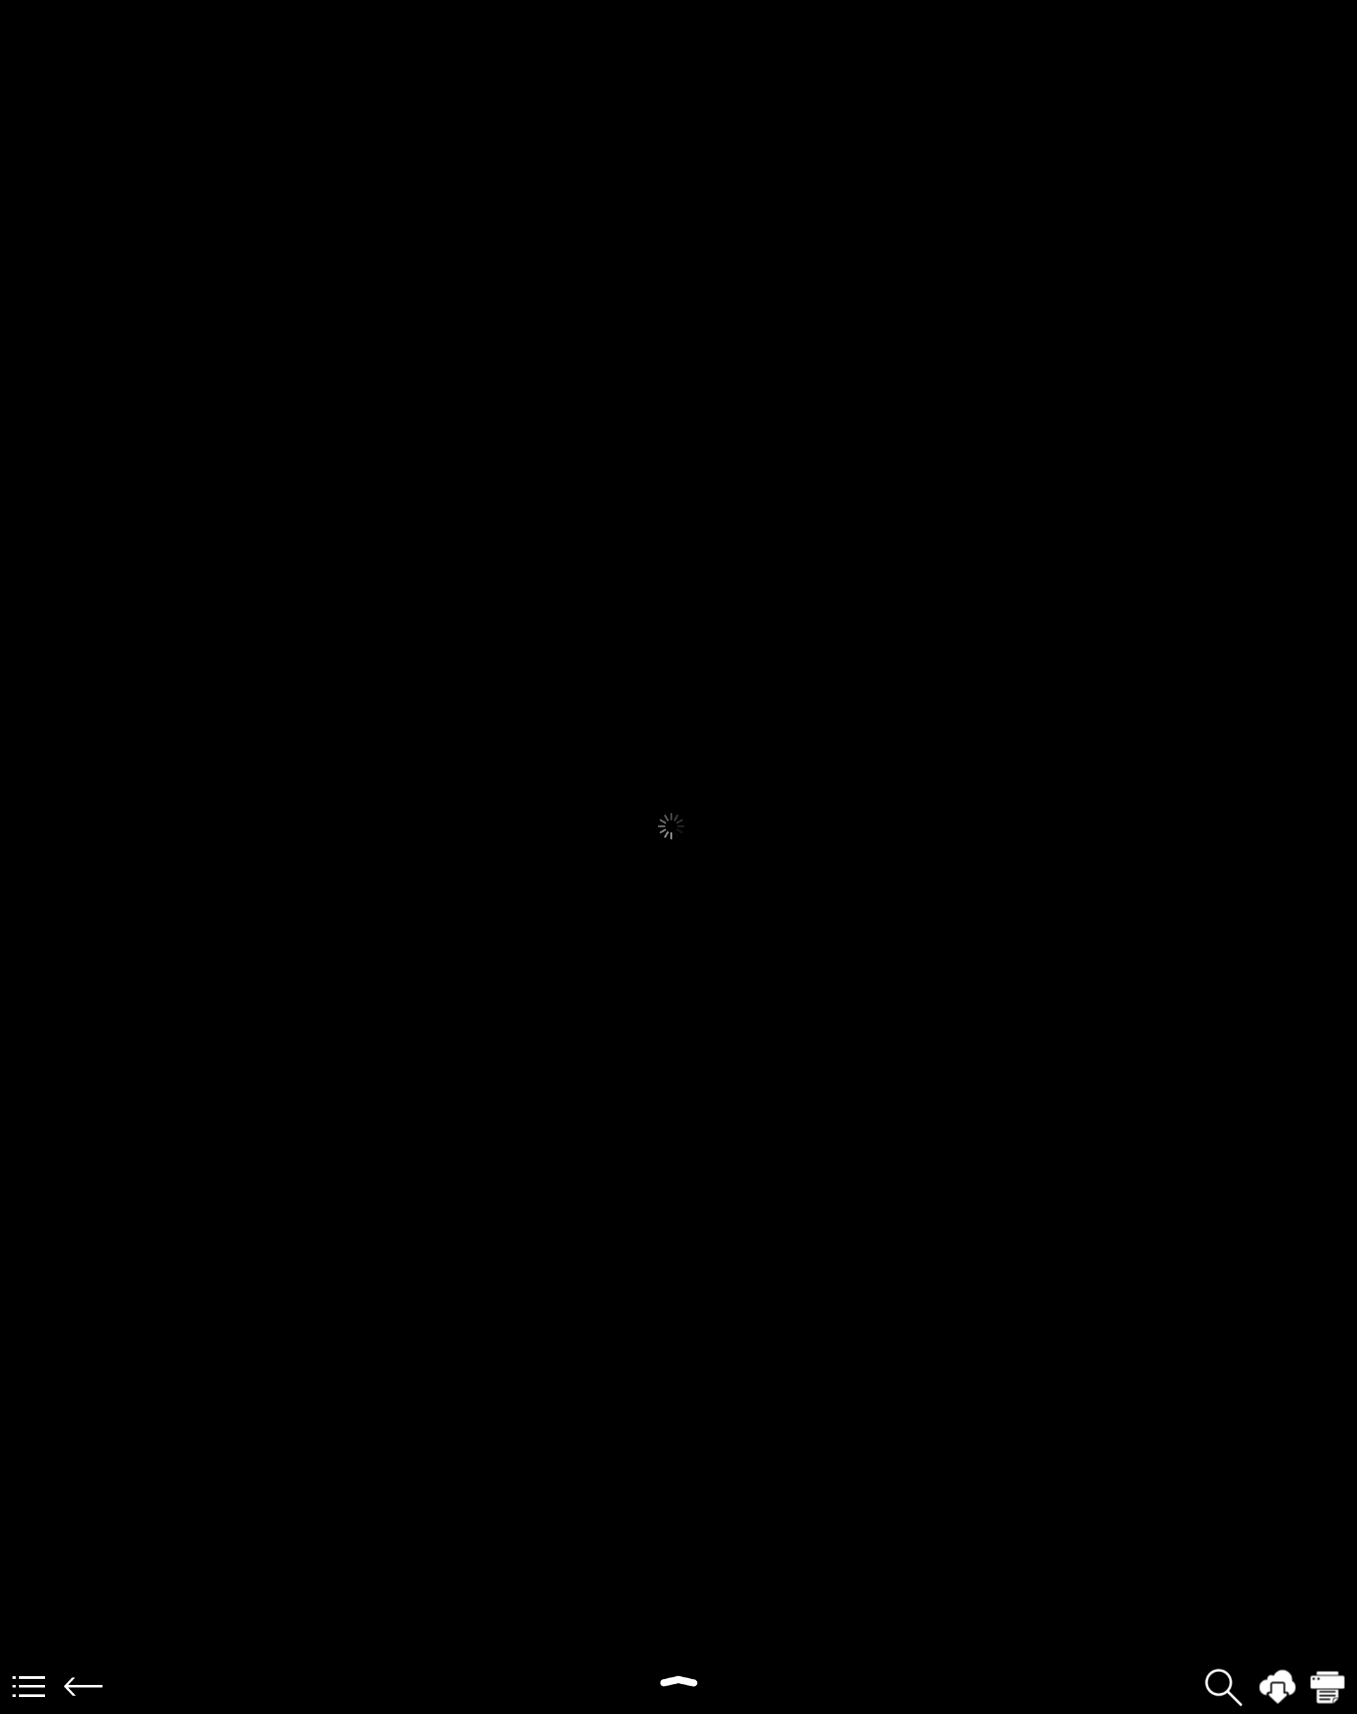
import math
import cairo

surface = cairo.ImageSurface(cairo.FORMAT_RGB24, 1357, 1714)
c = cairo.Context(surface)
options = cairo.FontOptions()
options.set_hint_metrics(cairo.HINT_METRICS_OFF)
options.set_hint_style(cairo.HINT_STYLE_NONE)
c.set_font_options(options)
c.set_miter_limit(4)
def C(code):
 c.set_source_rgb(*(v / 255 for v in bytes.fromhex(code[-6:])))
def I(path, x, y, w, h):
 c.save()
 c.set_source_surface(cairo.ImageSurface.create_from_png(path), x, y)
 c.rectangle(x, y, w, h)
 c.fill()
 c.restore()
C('000000')
c.paint()
I('1.png',658,813,27,27)
I('2.png',12,1676,33,21)
I('3.png',63,1677,40,19)
I('4.png',1204,1668,39,39)
I('5.png',1259,1669,37,36)
I('6.png',1310,1670,35,34)
I('7.png',660,1675,38,12)
surface.write_to_png('o.png')
